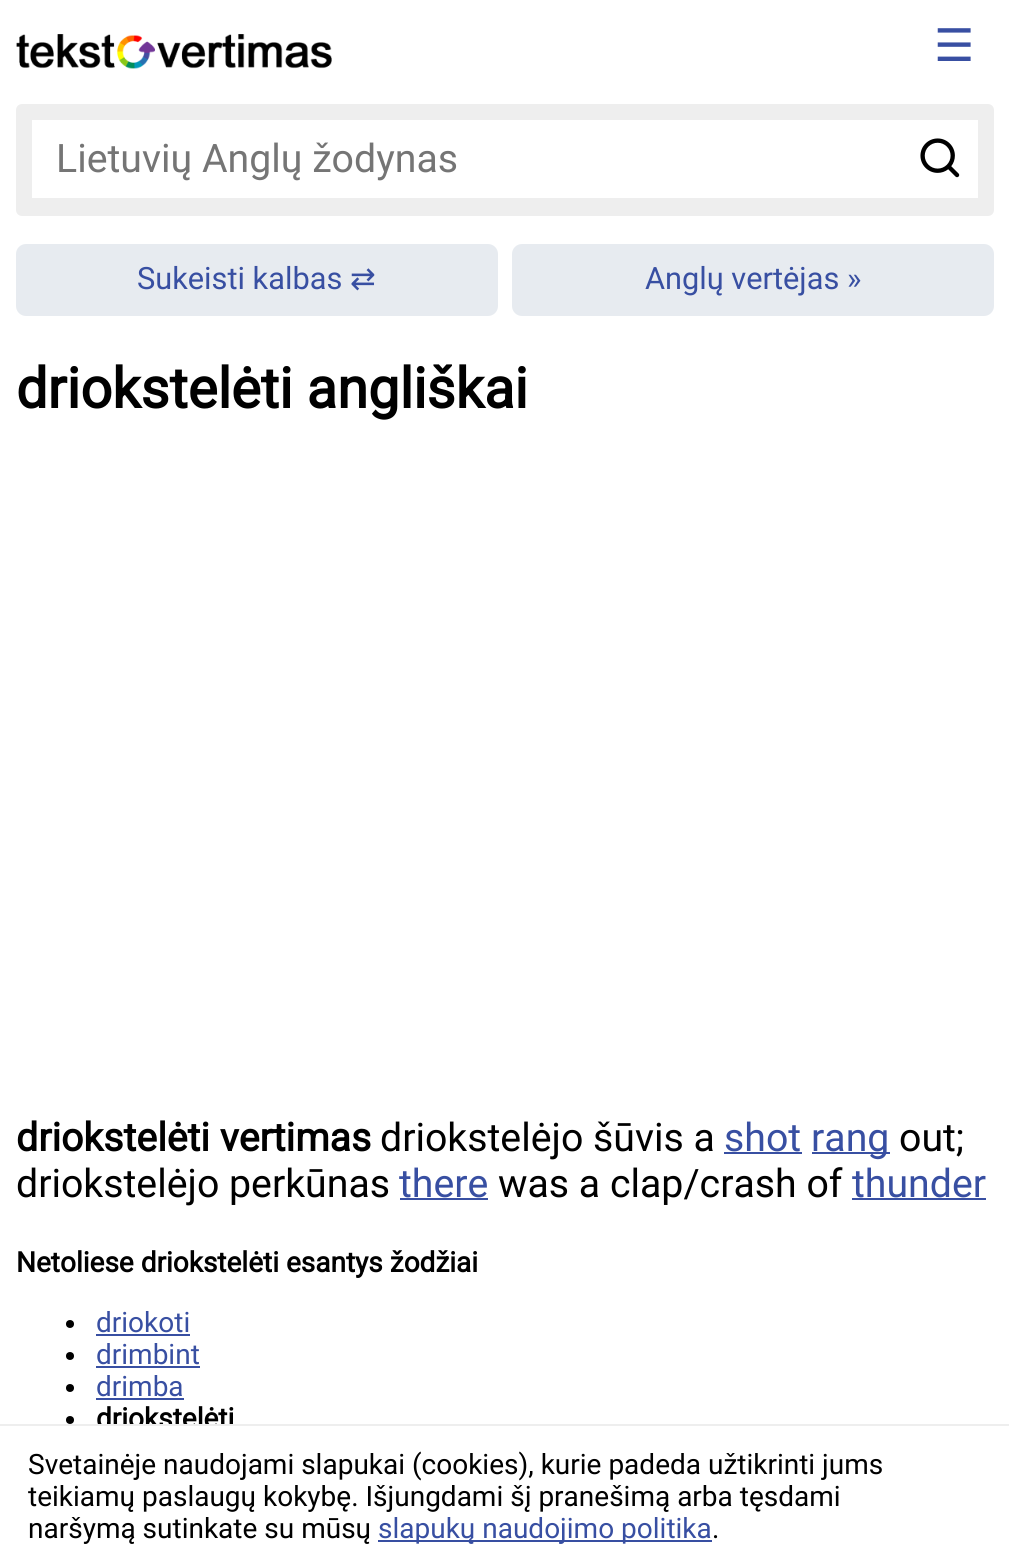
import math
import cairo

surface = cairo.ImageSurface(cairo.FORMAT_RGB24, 1009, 1565)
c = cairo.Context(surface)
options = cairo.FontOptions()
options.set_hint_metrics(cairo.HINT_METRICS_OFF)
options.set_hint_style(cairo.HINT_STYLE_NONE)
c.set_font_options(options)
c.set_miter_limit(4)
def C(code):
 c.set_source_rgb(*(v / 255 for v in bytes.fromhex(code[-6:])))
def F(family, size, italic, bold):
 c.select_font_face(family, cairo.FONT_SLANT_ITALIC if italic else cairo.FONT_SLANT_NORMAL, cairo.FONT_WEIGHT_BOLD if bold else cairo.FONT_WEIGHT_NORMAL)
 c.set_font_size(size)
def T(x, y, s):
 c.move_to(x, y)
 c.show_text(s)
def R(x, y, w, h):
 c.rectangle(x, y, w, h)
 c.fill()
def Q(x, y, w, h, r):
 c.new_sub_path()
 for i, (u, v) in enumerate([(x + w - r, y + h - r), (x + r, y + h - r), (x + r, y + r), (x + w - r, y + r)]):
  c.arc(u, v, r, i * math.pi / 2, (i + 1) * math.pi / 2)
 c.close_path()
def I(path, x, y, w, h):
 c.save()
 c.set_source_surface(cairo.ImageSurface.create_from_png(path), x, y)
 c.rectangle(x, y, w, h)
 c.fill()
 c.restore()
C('ffffff')
c.paint()
I('1.png',16,34,316,35)
F('DejaVu Sans',45,0,0)
C('384fa2')
T(934,61,'☰')
C('eeeeee')
Q(16,104,978,112,6)
c.fill()
C('ffffff')
R(32,120,946,78)
F('Roboto',39.25,0,0)
C('757575')
T(56,172,'Lietuvių Anglų žodynas')
I('2.png',920,138,40,40)
C('e7ebf0')
Q(16,244,482,72,10)
c.fill()
F('Roboto',30.75,0,0)
C('384fa2')
T(137,289,'Sukeisti kalbas')
F('DejaVu Sans',30.75,0,0)
T(350,289,'⇄')
C('e7ebf0')
Q(512,244,482,72,10)
c.fill()
F('Roboto',30.75,0,0)
C('384fa2')
T(645,289,'Anglų vertėjas »')
F('Roboto',56,0,1)
C('000000')
T(16,408,'driokstelėti angliškai')
F('Roboto',39.25,0,1)
T(16,1151,'driokstelėti vertimas')
F('Roboto',39.25,0,0)
T(380,1151,'driokstelėjo šūvis a')
C('384fa2')
T(724,1151,'shot')
R(724,1152,78,2)
R(812,1152,78,2)
T(811,1151,'rang')
C('000000')
T(899,1151,'out;')
T(16,1197,'driokstelėjo perkūnas')
C('384fa2')
T(399,1197,'there')
R(400,1198,88,2)
C('000000')
T(498,1197,'was a clap/crash of')
C('384fa2')
T(852,1197,'thunder')
R(852,1198,134,2)
F('Roboto',28,0,1)
C('000000')
T(16,1272,'Netoliese driokstelėti esantys žodžiai')
c.new_path()
c.arc(70,1324,4,0,2 * math.pi)
c.fill()
F('Roboto',28,0,0)
C('384fa2')
T(96,1332,'driokoti')
R(96,1334,94,2)
C('000000')
c.new_path()
c.arc(70,1356,4,0,2 * math.pi)
c.fill()
C('384fa2')
T(96,1364,'drimbint')
R(96,1366,104,2)
C('000000')
c.new_path()
c.arc(70,1388,4,0,2 * math.pi)
c.fill()
C('384fa2')
T(96,1396,'drimba')
R(96,1398,88,2)
C('000000')
c.new_path()
c.arc(70,1420,4,0,2 * math.pi)
c.fill()
F('Roboto',28,0,1)
T(96,1428,'driokstelėti')
C('ffffff')
R(98,1426,135,3)
C('eeeeee')
R(0,1424,1009,2)
F('Roboto',28,0,0)
C('000000')
T(28,1474,'Svetainėje naudojami slapukai (cookies), kurie padeda užtikrinti jums')
T(28,1506,'teikiamų paslaugų kokybę. Išjungdami šį pranešimą arba tęsdami')
T(28,1538,'naršymą sutinkate su mūsų')
C('384fa2')
R(378,1540,334,2)
T(378,1538,'slapukų naudojimo politika')
C('000000')
T(712,1538,'.')
surface.write_to_png('o.png')
